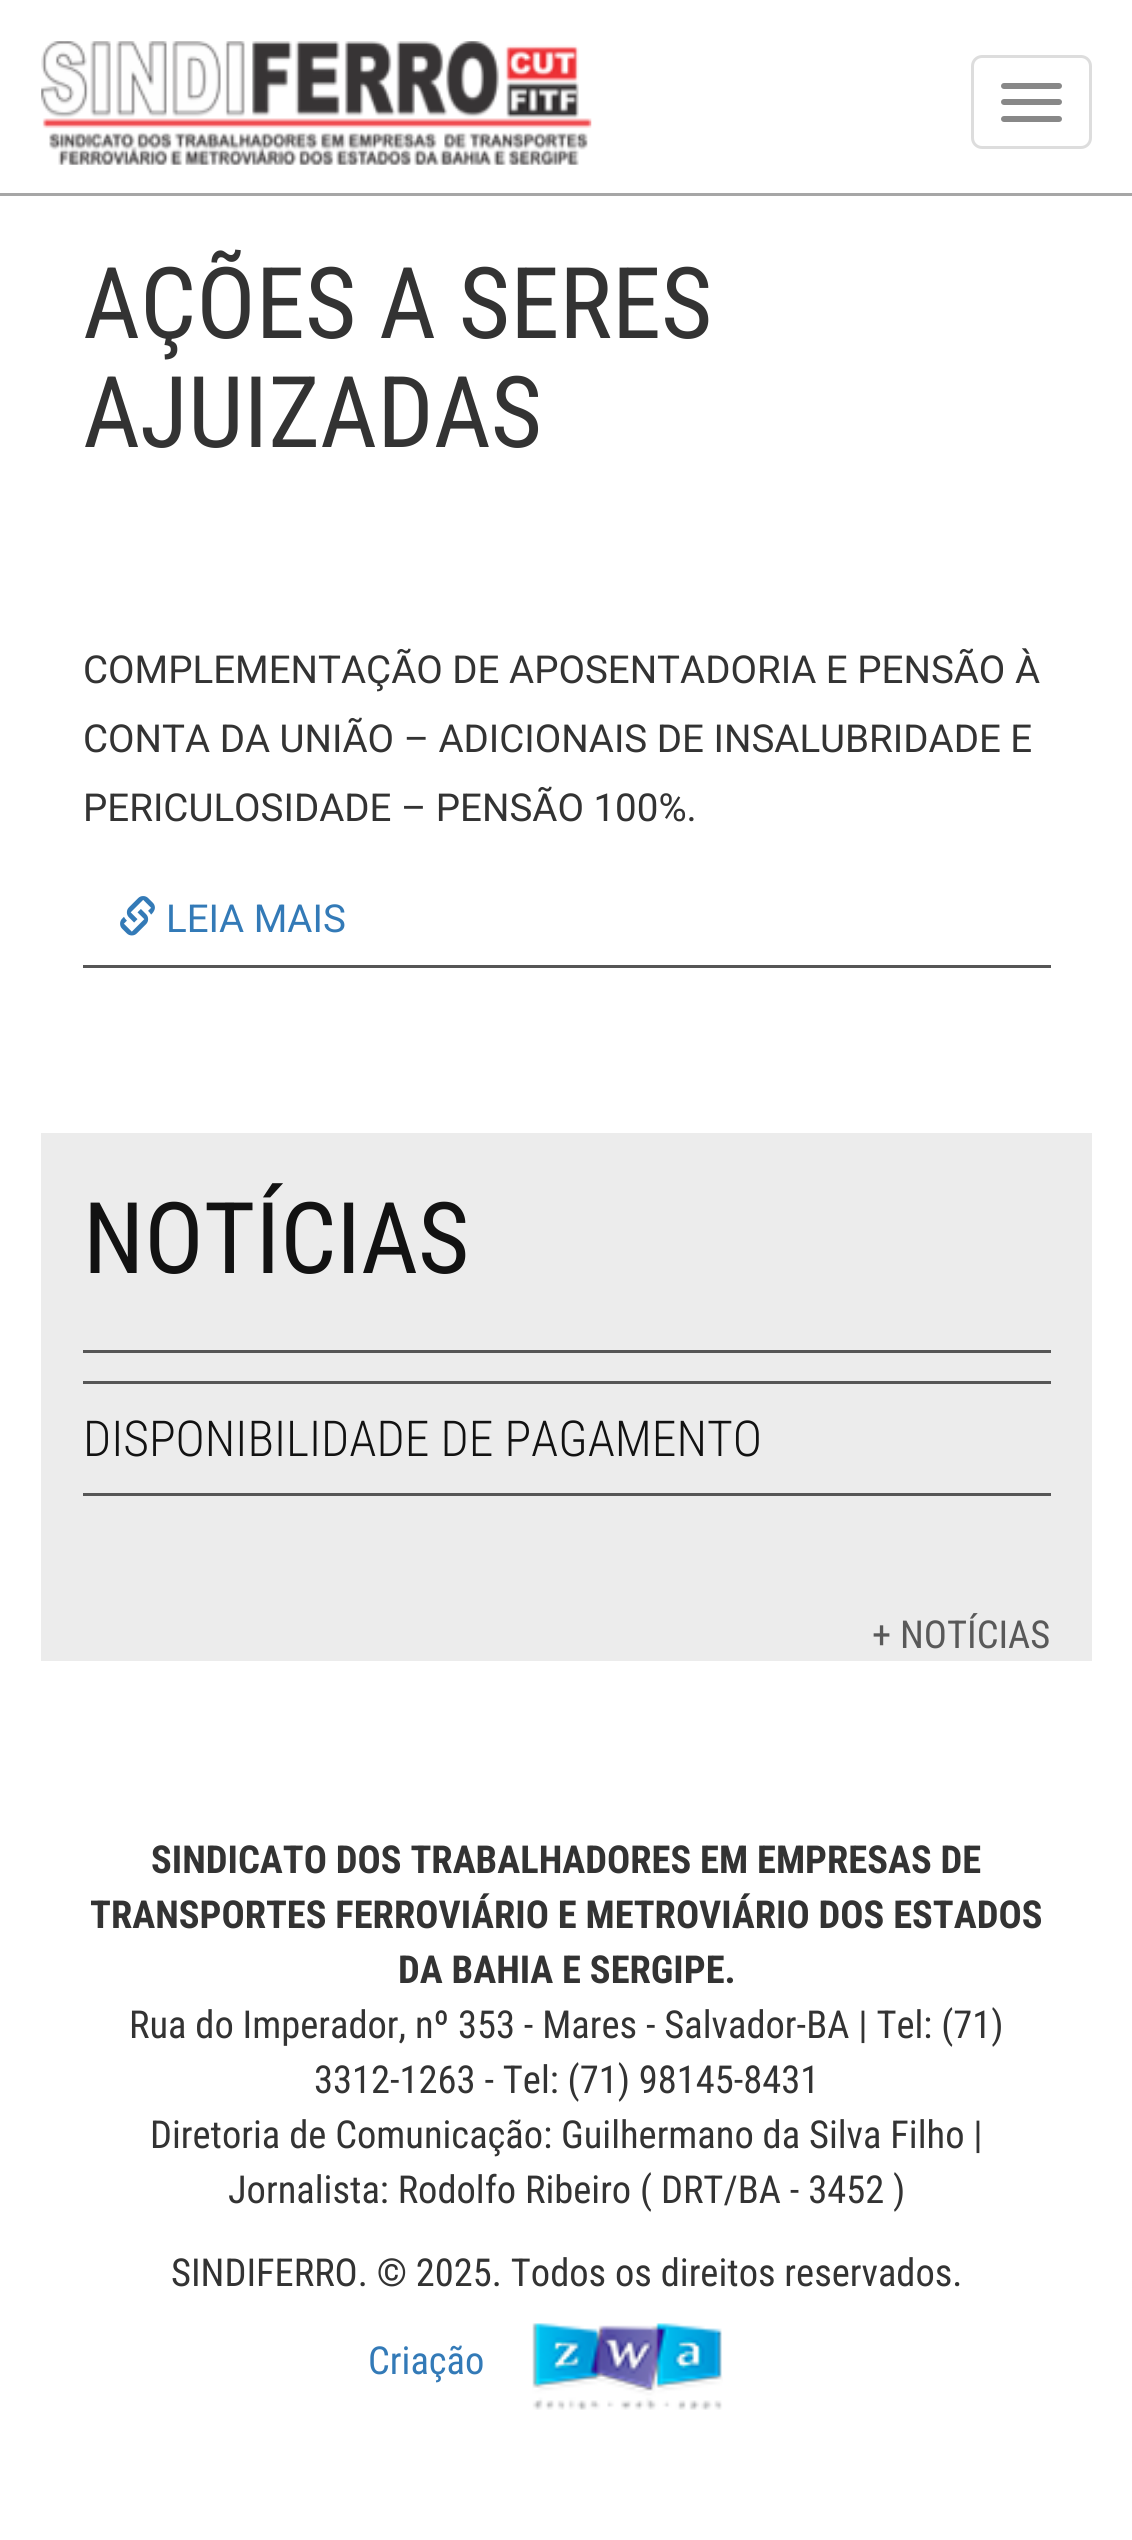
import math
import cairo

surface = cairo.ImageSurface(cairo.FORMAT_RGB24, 1132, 2540)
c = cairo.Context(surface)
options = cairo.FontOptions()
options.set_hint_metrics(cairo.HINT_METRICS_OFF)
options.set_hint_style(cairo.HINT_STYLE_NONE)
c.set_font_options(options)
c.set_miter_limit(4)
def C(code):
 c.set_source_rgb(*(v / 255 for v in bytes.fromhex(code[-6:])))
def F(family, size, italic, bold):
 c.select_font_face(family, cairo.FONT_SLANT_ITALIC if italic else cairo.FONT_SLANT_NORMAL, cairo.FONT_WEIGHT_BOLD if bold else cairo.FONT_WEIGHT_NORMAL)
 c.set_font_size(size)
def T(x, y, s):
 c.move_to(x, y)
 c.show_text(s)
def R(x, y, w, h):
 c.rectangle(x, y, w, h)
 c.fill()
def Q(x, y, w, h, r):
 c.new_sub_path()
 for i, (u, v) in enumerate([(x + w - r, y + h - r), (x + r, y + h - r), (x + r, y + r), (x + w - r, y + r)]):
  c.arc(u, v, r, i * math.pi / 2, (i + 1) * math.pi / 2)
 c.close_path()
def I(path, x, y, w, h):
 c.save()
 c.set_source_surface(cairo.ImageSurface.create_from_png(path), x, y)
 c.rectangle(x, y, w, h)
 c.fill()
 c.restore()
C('ffffff')
c.paint()
C('a6a6a6')
R(0,193,1132,3)
I('1.png',41,41,551,124)
Q(972.5,56.5,118,91,9.5)
C('dddddd')
c.set_line_width(3)
c.stroke()
C('888888')
Q(1001,83,61,6,3)
c.fill()
Q(1001,99,61,6,3)
c.fill()
Q(1001,116,61,6,3)
c.fill()
F('Roboto Condensed',99,0,0)
C('333333')
T(83,338,'AÇÕES A SERES')
T(83,447,'AJUIZADAS')
F('Roboto',38.5,0,0)
T(83,683,'COMPLEMENTAÇÃO DE APOSENTADORIA E PENSÃO À')
T(83,752,'CONTA DA UNIÃO – ADICIONAIS DE INSALUBRIDADE E')
T(83,821,'PERICULOSIDADE – PENSÃO 100%.')
I('2.png',120,896,35,40)
C('337ab7')
T(166,932,'LEIA MAIS')
C('565656')
R(83,965,968,3)
C('ececec')
R(41,1133,1051,528)
F('Roboto Condensed',99,0,0)
C('121212')
T(83,1273,'NOTÍCIAS')
C('565656')
R(83,1350,968,3)
R(83,1381,968,3)
F('Roboto Condensed Light',49.5,0,0)
C('121212')
T(83,1456,'DISPONIBILIDADE DE PAGAMENTO')
C('565656')
R(83,1493,968,3)
F('Roboto Condensed',38.5,0,0)
C('595959')
T(872,1648,'+ NOTÍCIAS')
F('Roboto Condensed',38.5,0,1)
C('333333')
T(151,1873,'SINDICATO DOS TRABALHADORES EM EMPRESAS DE')
T(90,1928,'TRANSPORTES FERROVIÁRIO E METROVIÁRIO DOS ESTADOS')
T(398,1983,'DA BAHIA E SERGIPE.')
F('Roboto Condensed',38.5,0,0)
T(129,2038,'Rua do Imperador, nº 353 - Mares - Salvador-BA | Tel: (71)')
T(314,2093,'3312-1263 - Tel: (71) 98145-8431')
T(150,2148,'Diretoria de Comunicação: Guilhermano da Silva Filho |')
T(228,2203,'Jornalista: Rodolfo Ribeiro ( DRT/BA - 3452 )')
T(171,2286,'SINDIFERRO. © 2025. Todos os direitos reservados.')
C('337ab7')
T(368,2374,'Criação')
I('3.png',532,2323,191,87)
surface.write_to_png('o.png')
